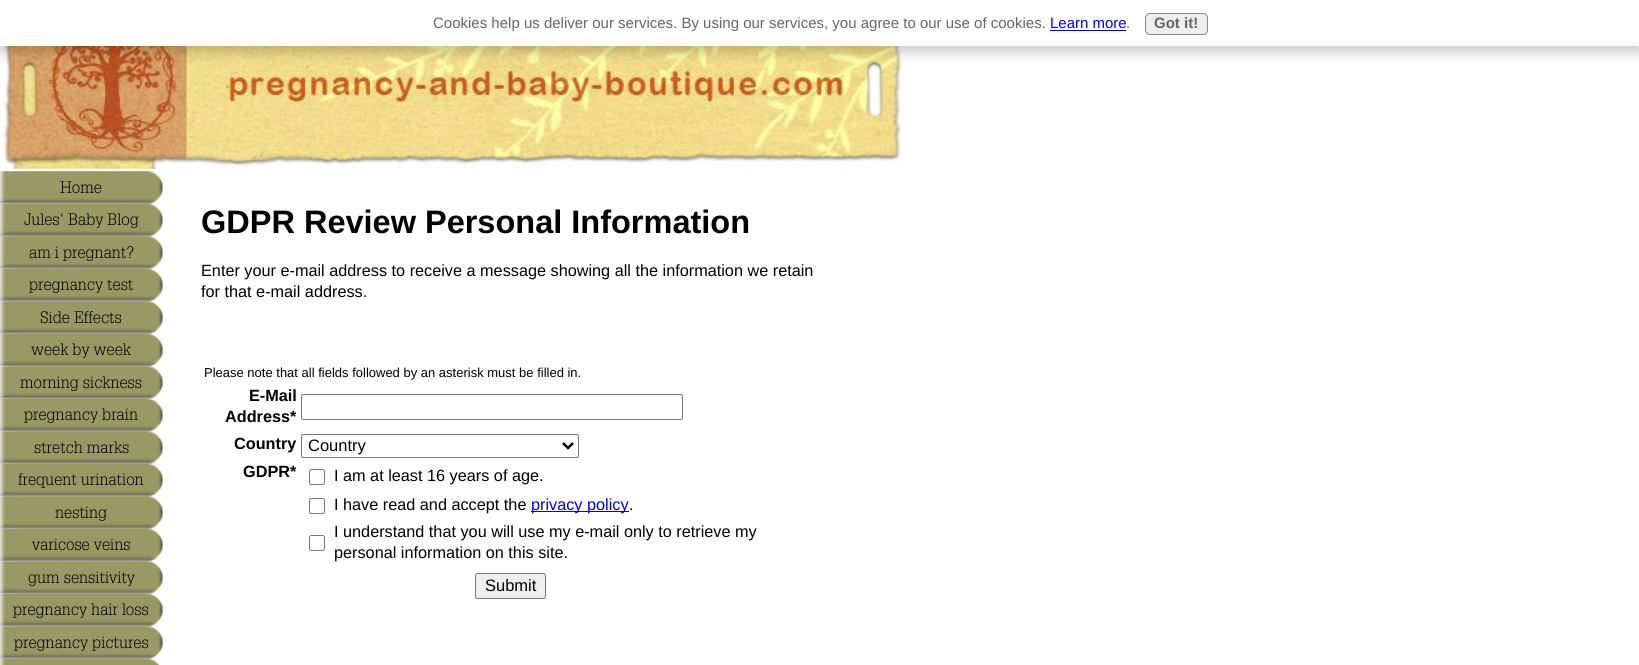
import math
import cairo

surface = cairo.ImageSurface(cairo.FORMAT_RGB24, 1639, 665)
c = cairo.Context(surface)
options = cairo.FontOptions()
options.set_hint_metrics(cairo.HINT_METRICS_OFF)
options.set_hint_style(cairo.HINT_STYLE_NONE)
c.set_font_options(options)
c.set_miter_limit(4)
def C(code):
 c.set_source_rgb(*(v / 255 for v in bytes.fromhex(code[-6:])))
def F(family, size, italic, bold):
 c.select_font_face(family, cairo.FONT_SLANT_ITALIC if italic else cairo.FONT_SLANT_NORMAL, cairo.FONT_WEIGHT_BOLD if bold else cairo.FONT_WEIGHT_NORMAL)
 c.set_font_size(size)
def T(x, y, s):
 c.move_to(x, y)
 c.show_text(s)
def R(x, y, w, h):
 c.rectangle(x, y, w, h)
 c.fill()
def Q(x, y, w, h, r):
 c.new_sub_path()
 for i, (u, v) in enumerate([(x + w - r, y + h - r), (x + r, y + h - r), (x + r, y + r), (x + w - r, y + r)]):
  c.arc(u, v, r, i * math.pi / 2, (i + 1) * math.pi / 2)
 c.close_path()
def S(x, y, w, h, r, blur, alpha):
 c.push_group_with_content(cairo.CONTENT_ALPHA)
 c.set_operator(cairo.OPERATOR_SOURCE)
 for i in range(15, -16, -2):
  e = blur * i / 6
  if min(w, h) + 2 * e > 0:
   c.set_source_rgba(0, 0, 0, alpha * math.erfc((i - 1) / 8.5) / 2)
   Q(x - e, y - e, w + 2 * e, h + 2 * e, max(0, min(r + e + blur * .6, min(w, h) / 2 + e)))
   c.fill()
 c.mask(c.pop_group())
def I(path, x, y, w, h):
 c.save()
 c.set_source_surface(cairo.ImageSurface.create_from_png(path), x, y)
 c.rectangle(x, y, w, h)
 c.fill()
 c.restore()
C('ffffff')
c.paint()
I('1.png',0,46,902,123)
C('000000')
S(-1,4,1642,49,0,6,.2)
C('ffffff')
R(0,0,1639,46)
F('Liberation Sans',15,0,0)
C('666666')
T(433,28,'Cookies help us deliver our services. By using our services, you agree to our use of cookies.')
C('0000ff')
T(1050,28,'Learn more')
R(1050,30,76,1)
C('666666')
T(1126,28,'.')
C('eeeeee')
Q(1145.5,13.5,62,21,4.5)
c.fill_preserve()
C('888888')
c.set_line_width(1)
c.stroke()
F('Liberation Sans',15,0,1)
C('666666')
T(1154,28,'Got it!')
I('2.png',11,171,149,488)
I('3.png',0,171,163,33)
F('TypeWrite',16.25,0,0)
C('000000')
T(60,193,'Home')
I('4.png',0,203,163,34)
T(24,225,'Jules\' Baby Blog')
I('5.png',0,236,163,33)
T(29,258,'am i pregnant?')
I('6.png',0,268,163,34)
T(29,290,'pregnancy test')
I('7.png',0,301,163,33)
T(40,323,'Side Effects')
I('8.png',0,333,163,34)
T(31,355,'week by week')
I('9.png',0,366,163,33)
T(20,388,'morning sickness')
I('10.png',0,398,163,34)
T(24,420,'pregnancy brain')
I('11.png',0,431,163,33)
T(34,453,'stretch marks')
I('12.png',0,463,163,34)
T(18,485,'frequent urination')
I('13.png',0,496,163,33)
T(55,518,'nesting')
I('14.png',0,528,163,34)
T(32,550,'varicose veins')
I('15.png',0,561,163,33)
T(28,583,'gum sensitivity')
I('16.png',0,593,163,34)
T(13,615,'pregnancy hair loss')
I('17.png',0,626,163,33)
T(14,648,'pregnancy pictures')
I('18.png',0,658,160,7)
F('Liberation Sans',32.5,0,1)
T(201,233,'GDPR Review Personal Information')
F('Liberation Sans',16.25,0,0)
T(201,276,'Enter your e-mail address to receive a message showing all the information we retain')
T(201,297,'for that e-mail address.')
F('Liberation Sans',13,0,0)
T(204,377,'Please note that all fields followed by an asterisk must be filled in.')
F('Liberation Sans',16.25,0,1)
T(249,401,'E-Mail')
T(225,422,'Address*')
Q(301.5,394.5,381,25,2)
C('767676')
c.stroke()
C('000000')
T(234,449,'Country')
Q(301.5,434.5,277,23,2)
C('767676')
c.stroke()
c.new_path()
c.move_to(563,443)
c.line_to(568,448)
c.line_to(573,443)
C('000000')
c.set_line_width(2.5)
c.stroke()
F('Liberation Sans',16.5,0,0)
T(308,451,'Country')
F('Liberation Sans',16.25,0,1)
T(243,477,'GDPR*')
Q(309.5,469.5,15,15,2)
C('767676')
c.set_line_width(1)
c.stroke()
F('Liberation Sans',16.25,0,0)
C('000000')
T(334,481,'I am at least 16 years of age.')
Q(309.5,498.5,15,15,2)
C('767676')
c.stroke()
C('000000')
T(334,510,'I have read and accept the')
C('0000ee')
R(531,511,98,1)
T(531,510,'privacy policy')
C('000000')
T(629,510,'.')
Q(309.5,535.5,15,15,2)
C('767676')
c.stroke()
C('000000')
T(334,537,'I understand that you will use my e-mail only to retrieve my')
T(334,558,'personal information on this site.')
C('efefef')
Q(475.5,573.5,70,25,2)
c.fill_preserve()
C('767676')
c.stroke()
F('Liberation Sans',16.5,0,0)
C('000000')
T(485,591,'Submit')
surface.write_to_png('o.png')
